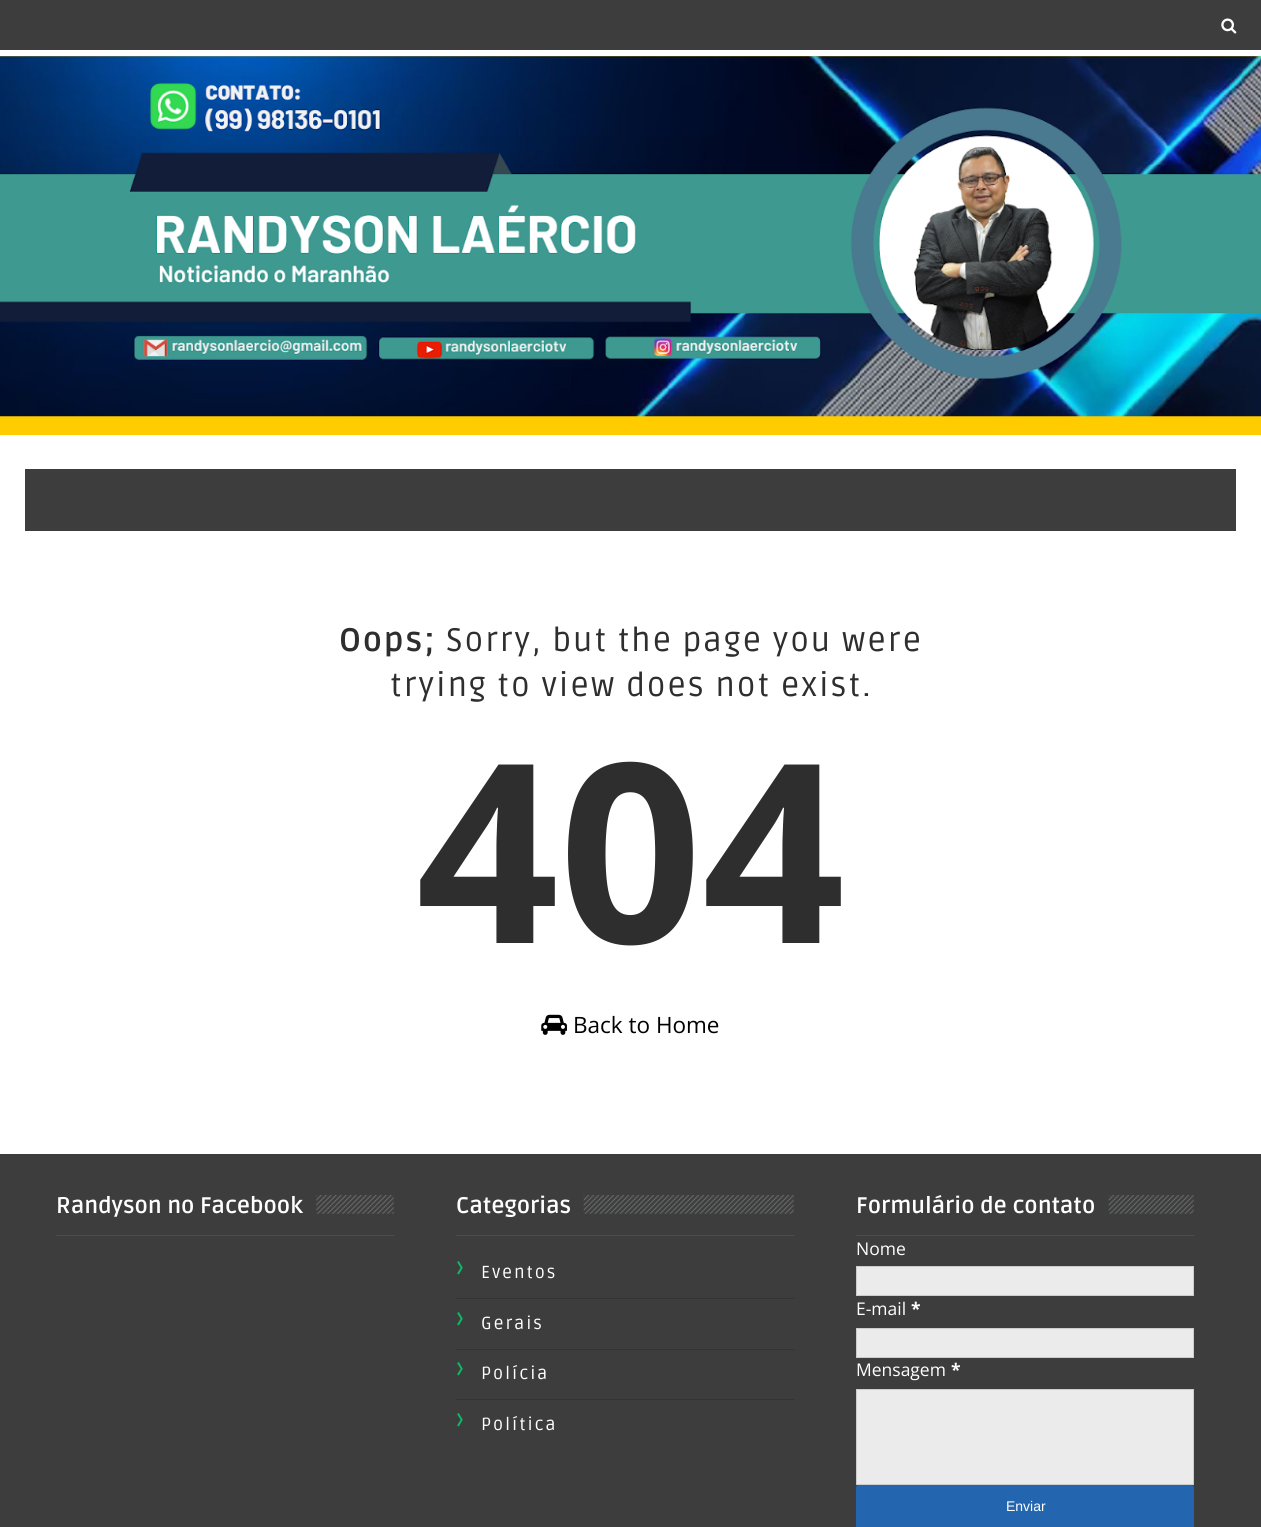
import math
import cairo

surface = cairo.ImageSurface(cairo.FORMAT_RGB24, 1261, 1527)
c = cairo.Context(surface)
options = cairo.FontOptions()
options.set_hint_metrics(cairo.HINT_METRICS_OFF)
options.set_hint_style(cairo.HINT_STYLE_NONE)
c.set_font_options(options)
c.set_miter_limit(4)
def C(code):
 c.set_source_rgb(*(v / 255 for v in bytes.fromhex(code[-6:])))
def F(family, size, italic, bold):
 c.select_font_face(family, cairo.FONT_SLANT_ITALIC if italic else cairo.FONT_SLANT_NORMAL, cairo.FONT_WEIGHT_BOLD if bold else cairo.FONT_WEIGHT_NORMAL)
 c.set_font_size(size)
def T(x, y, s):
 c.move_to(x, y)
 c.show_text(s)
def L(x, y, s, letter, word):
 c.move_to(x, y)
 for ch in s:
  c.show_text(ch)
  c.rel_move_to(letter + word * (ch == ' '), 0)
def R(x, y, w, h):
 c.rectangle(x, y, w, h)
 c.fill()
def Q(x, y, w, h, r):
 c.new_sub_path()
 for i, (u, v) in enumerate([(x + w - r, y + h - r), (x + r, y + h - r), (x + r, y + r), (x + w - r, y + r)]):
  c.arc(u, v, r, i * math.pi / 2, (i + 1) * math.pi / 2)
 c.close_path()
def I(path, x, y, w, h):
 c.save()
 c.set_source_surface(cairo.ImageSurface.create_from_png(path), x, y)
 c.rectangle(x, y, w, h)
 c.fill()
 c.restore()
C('ffffff')
c.paint()
C('3d3d3d')
R(0,0,1261,50)
I('1.png',1221,18,16,16)
C('ffcc00')
R(0,56,1261,379)
I('2.png',0,56,1261,361)
C('3d3d3d')
R(25,469,1211,62)
F('Ruda',32.5,0,1)
C('2e2e2e')
L(339,651,'Oops;',1.9,0)
F('Ruda',32.5,0,0)
L(446,651,'Sorry, but the page you were',1.9,0)
L(390,696,'trying to view does not exist.',1.9,0)
F('Open Sans',250,0,1)
T(416,943,'404')
I('3.png',541,1014,26,21)
F('Open Sans',22.5,0,0)
C('000000')
T(573,1033,'Back to Home')
C('3d3d3d')
R(0,1154,1261,373)
C('325659')
R(56,1235,338,1)
F('Ruda',22.5,0,1)
C('ffffff')
T(56,1213,'Randyson no Facebook')
I('4.png',316,1195,78,19)
C('325659')
R(456,1235,338,1)
C('ffffff')
T(456,1213,'Categorias')
I('5.png',583,1195,211,19)
C('333333')
R(456,1298,338,1)
F('Ruda',28,0,0)
C('10b765')
L(456,1277,'›',1.9,0)
F('Ruda',17.5,0,0)
C('ffffff')
L(481,1278,'Eventos',1.9,0)
C('333333')
R(456,1349,338,1)
F('Ruda',28,0,0)
C('10b765')
L(456,1328,'›',1.9,0)
F('Ruda',17.5,0,0)
C('ffffff')
L(481,1329,'Gerais',1.9,0)
C('333333')
R(456,1399,338,1)
F('Ruda',28,0,0)
C('10b765')
L(456,1378,'›',1.9,0)
F('Ruda',17.5,0,0)
C('ffffff')
L(481,1379,'Polícia',1.9,0)
F('Ruda',28,0,0)
C('10b765')
L(456,1429,'›',1.9,0)
F('Ruda',17.5,0,0)
C('ffffff')
L(481,1430,'Política',1.9,0)
C('325659')
R(856,1235,338,1)
F('Ruda',22.5,0,1)
C('ffffff')
T(856,1213,'Formulário de contato')
I('6.png',1108,1195,86,19)
F('Open Sans',17.5,0,0)
T(856,1255,'Nome')
C('ebebeb')
c.rectangle(856.5,1266.5,337,29)
c.fill_preserve()
C('cccccc')
c.set_line_width(1)
c.stroke()
C('ffffff')
T(856,1315,'E-mail')
F('Open Sans',17.5,0,1)
T(911,1315,'*')
C('ebebeb')
c.rectangle(856.5,1328.5,337,29)
c.fill_preserve()
C('cccccc')
c.stroke()
F('Open Sans',17.5,0,0)
C('ffffff')
T(856,1376,'Mensagem')
F('Open Sans',17.5,0,1)
T(951,1376,'*')
C('ebebeb')
c.rectangle(856.5,1389.5,337,95)
c.fill_preserve()
C('cccccc')
c.stroke()
C('2365af')
Q(856,1485,338,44,2.5)
c.fill()
F('Liberation Sans',14,0,0)
C('ffffff')
T(1006,1511,'Enviar')
surface.write_to_png('o.png')
